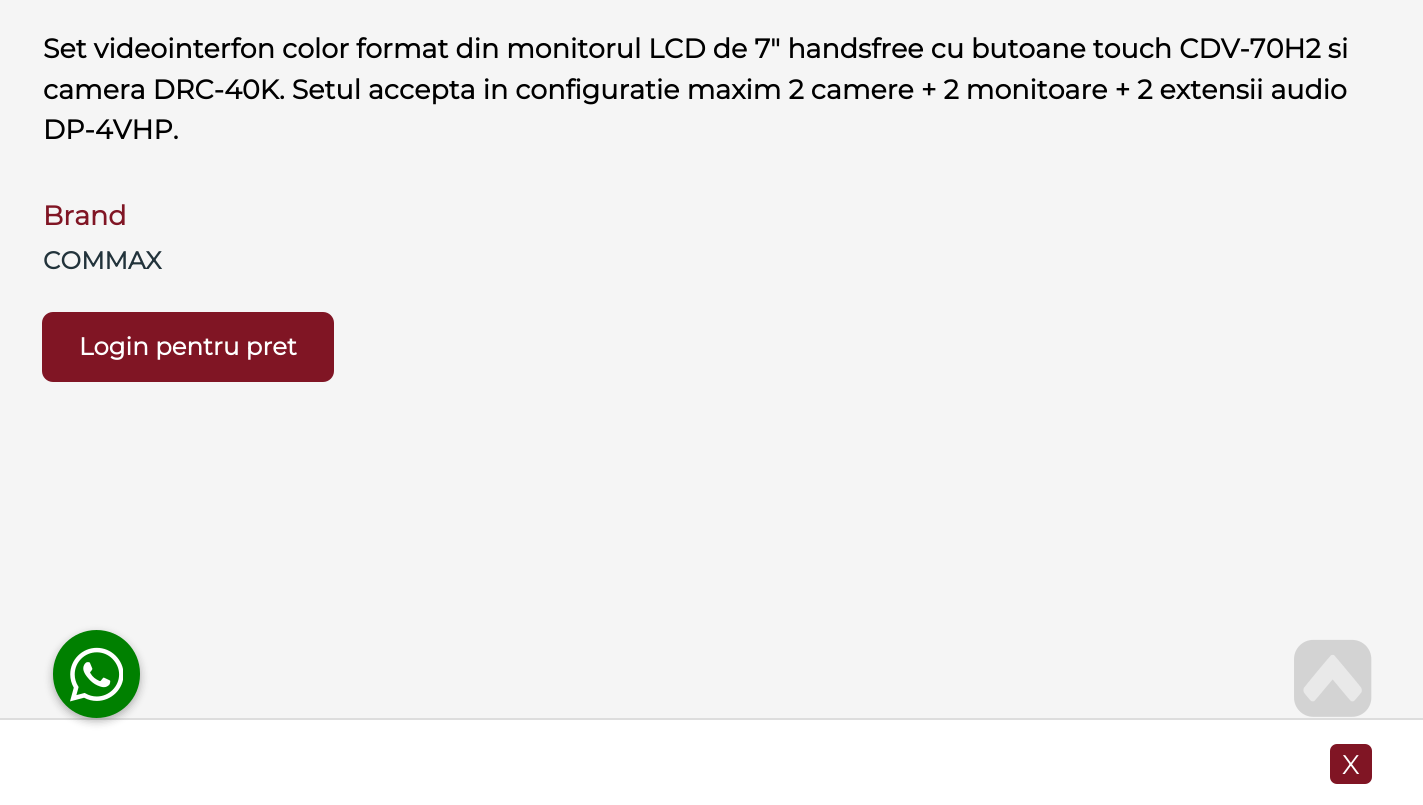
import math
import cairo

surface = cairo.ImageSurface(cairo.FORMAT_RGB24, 1423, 805)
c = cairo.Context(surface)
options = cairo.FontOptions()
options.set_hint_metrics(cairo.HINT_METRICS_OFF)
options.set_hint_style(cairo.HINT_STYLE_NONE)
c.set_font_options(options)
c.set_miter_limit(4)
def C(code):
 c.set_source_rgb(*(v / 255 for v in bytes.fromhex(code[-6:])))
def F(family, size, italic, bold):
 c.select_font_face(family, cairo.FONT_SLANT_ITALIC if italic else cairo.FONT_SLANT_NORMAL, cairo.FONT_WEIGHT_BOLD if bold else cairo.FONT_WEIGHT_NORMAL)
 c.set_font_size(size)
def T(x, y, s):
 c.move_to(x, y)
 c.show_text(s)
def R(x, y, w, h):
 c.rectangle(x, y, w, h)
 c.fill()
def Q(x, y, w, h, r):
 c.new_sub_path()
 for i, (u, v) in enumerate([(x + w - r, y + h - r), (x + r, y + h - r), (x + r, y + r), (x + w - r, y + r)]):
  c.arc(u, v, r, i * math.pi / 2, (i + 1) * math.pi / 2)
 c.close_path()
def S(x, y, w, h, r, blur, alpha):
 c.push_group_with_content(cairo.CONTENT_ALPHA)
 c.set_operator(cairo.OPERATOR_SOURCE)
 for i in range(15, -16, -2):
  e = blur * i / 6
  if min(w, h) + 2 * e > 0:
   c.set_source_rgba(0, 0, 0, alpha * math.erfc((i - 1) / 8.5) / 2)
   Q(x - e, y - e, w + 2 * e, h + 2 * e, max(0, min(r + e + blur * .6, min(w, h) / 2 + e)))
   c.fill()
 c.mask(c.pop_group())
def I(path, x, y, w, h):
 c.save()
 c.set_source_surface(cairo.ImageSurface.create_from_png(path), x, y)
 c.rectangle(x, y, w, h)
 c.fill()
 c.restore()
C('f5f5f5')
c.paint()
F('Montserrat',26.95,0,1)
C('000000')
T(43,58,'Set videointerfon color format din monitorul LCD de 7" handsfree cu butoane touch CDV-70H2 si')
T(43,99,'camera DRC-40K. Setul accepta in configuratie maxim 2 camere + 2 monitoare + 2 extensii audio')
T(43,139,'DP-4VHP.')
C('801524')
T(43,225,'Brand')
F('Montserrat',24.5,0,1)
C('22333b')
T(43,269,'COMMAX')
C('801524')
Q(43,313,290,68,10)
c.fill_preserve()
c.stroke()
C('ffffff')
T(79,355,'Login pentru pret')
R(0,720,1423,85)
C('dddddd')
R(0,718,1423,2)
C('000000')
S(53,634,87,87,43.5,4.5,.3)
C('008000')
Q(53,630,87,88,43.5)
c.fill()
I('1.png',70,647,53,55)
I('2.png',1294,639,78,78)
C('801524')
Q(1330,744,42,40,7)
c.fill()
F('Montserrat Thin',26.95,0,0)
C('ffffff')
T(1342,774,'X')
surface.write_to_png('o.png')
